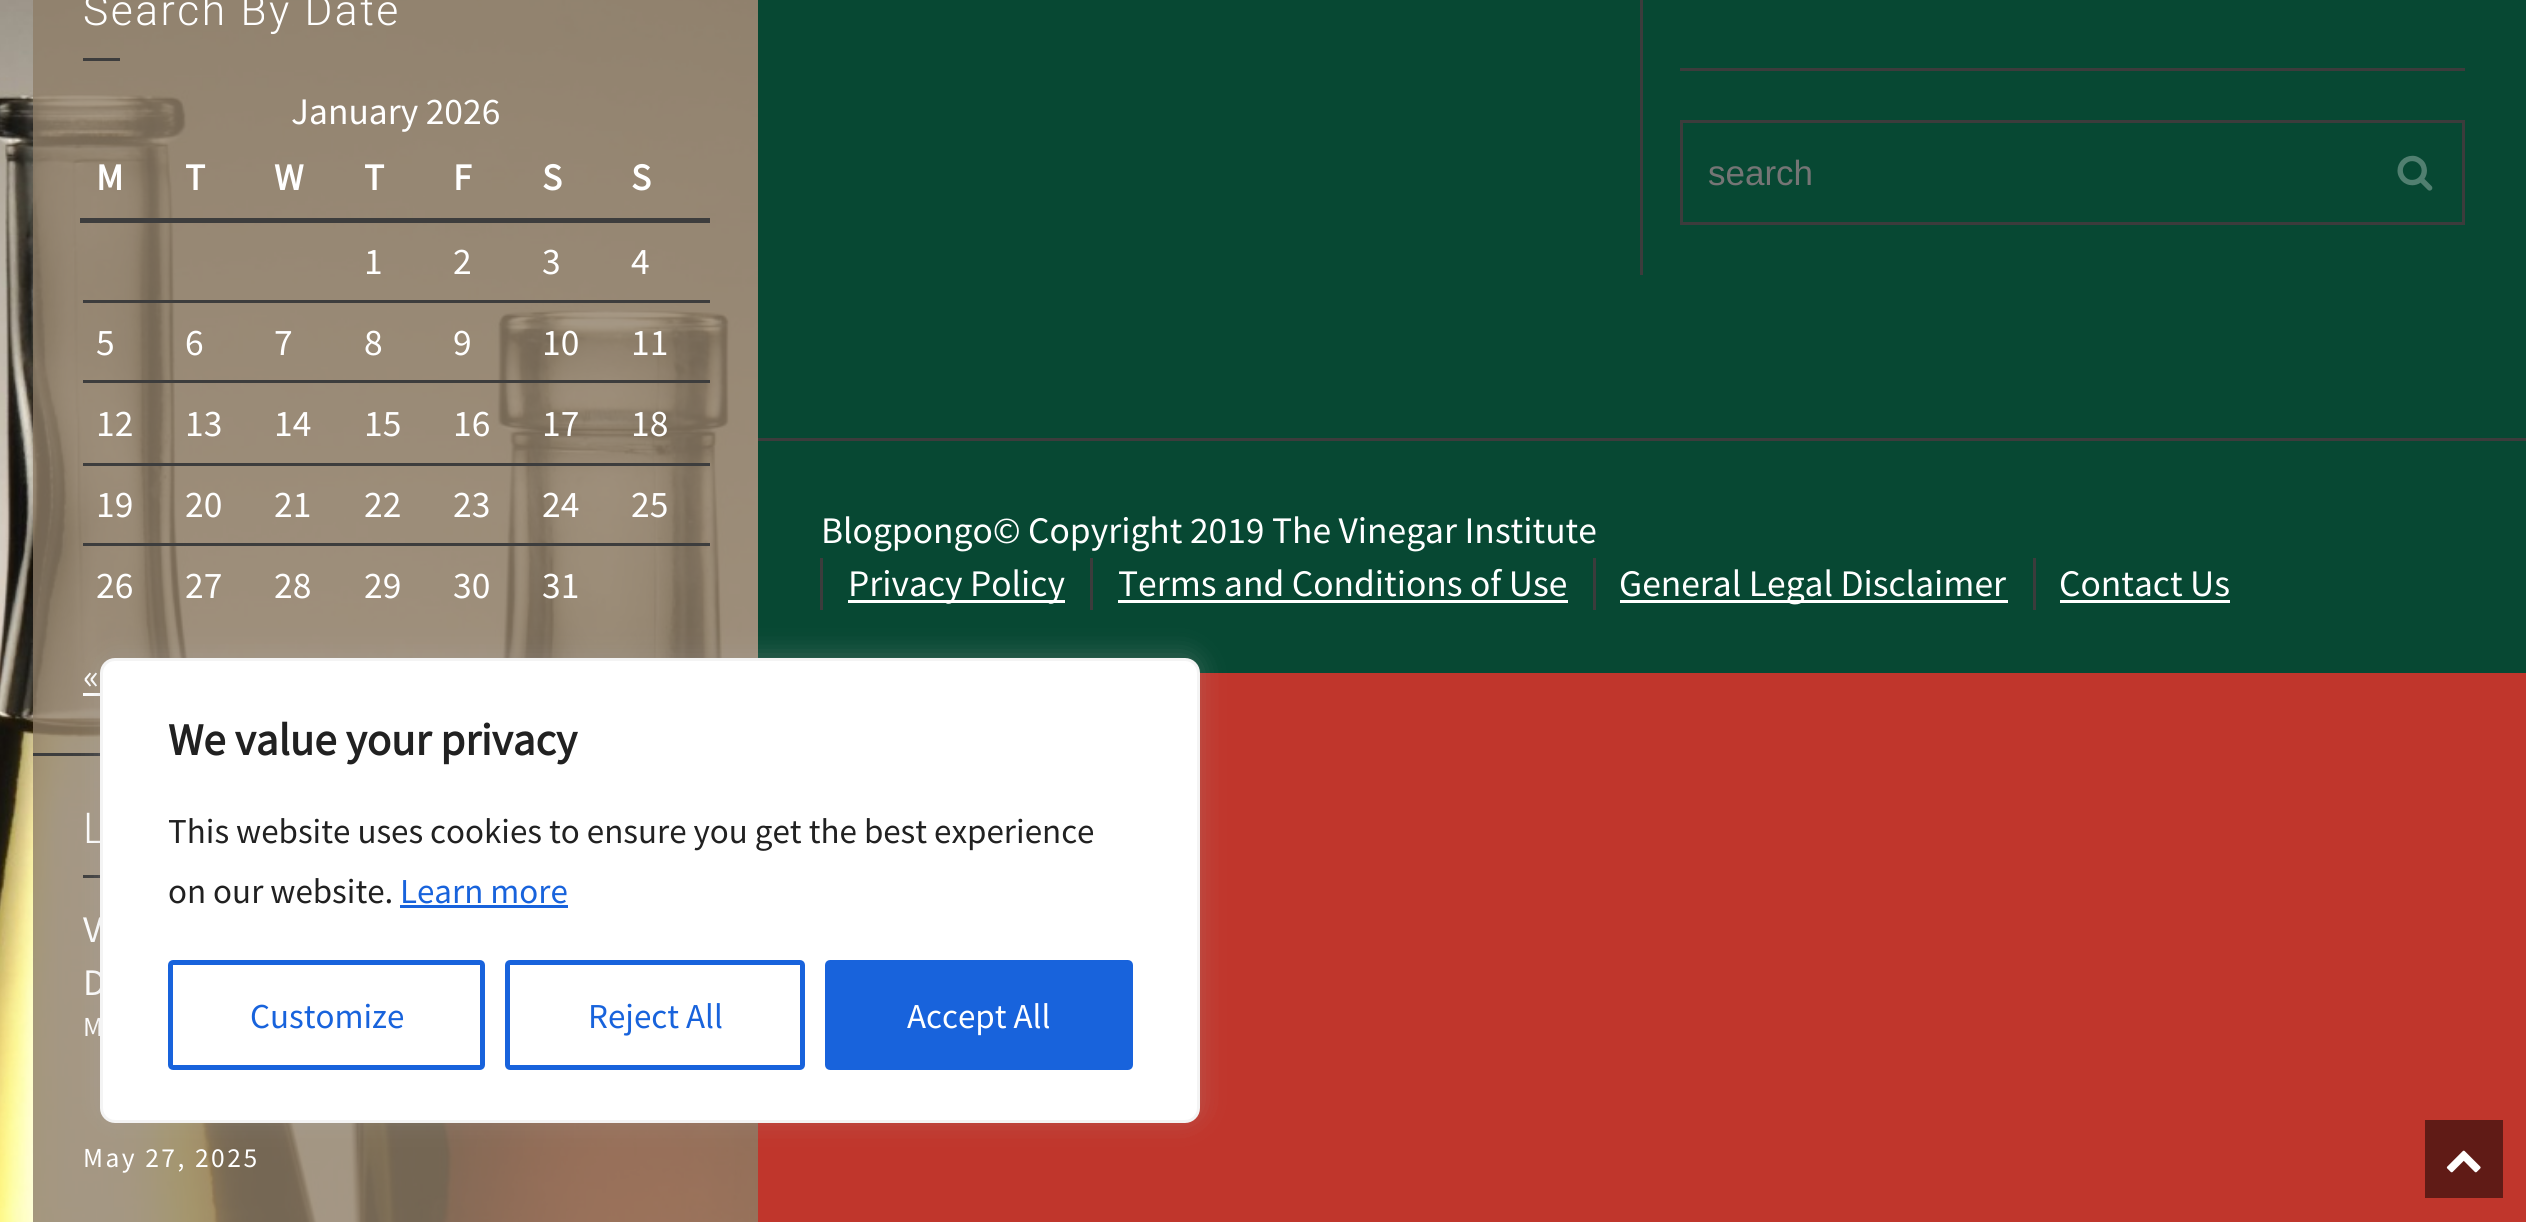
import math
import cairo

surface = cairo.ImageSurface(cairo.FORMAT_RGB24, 2526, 1222)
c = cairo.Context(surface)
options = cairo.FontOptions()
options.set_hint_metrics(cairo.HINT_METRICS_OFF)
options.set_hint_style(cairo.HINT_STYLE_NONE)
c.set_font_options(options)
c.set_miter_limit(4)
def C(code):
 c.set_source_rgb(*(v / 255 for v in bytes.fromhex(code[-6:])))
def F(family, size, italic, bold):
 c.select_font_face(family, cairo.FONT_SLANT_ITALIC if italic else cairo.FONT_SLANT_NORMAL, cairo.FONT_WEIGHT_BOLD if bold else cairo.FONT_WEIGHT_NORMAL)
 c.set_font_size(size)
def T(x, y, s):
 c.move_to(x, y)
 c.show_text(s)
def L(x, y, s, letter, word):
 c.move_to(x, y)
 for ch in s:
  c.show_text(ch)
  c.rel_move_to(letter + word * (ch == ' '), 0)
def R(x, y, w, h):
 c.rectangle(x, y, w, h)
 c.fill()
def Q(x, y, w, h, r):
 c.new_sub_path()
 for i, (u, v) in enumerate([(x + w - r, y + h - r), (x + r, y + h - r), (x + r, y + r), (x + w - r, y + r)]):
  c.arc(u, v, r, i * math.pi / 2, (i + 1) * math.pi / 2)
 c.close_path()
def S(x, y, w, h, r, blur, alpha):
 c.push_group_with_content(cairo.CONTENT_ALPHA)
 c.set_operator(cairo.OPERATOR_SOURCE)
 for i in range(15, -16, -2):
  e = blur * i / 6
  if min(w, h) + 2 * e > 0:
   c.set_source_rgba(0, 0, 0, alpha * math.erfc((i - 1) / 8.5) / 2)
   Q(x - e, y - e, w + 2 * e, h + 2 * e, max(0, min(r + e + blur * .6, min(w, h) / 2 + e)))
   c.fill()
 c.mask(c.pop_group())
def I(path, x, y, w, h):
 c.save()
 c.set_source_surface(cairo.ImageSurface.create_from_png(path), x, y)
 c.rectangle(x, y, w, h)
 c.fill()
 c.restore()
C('c0362c')
c.paint()
I('1.png',0,0,758,1222)
F('Roboto Light',42.5,0,0)
C('ffffff')
L(83,25,'Search By Date',2.5,0)
C('3d3d3d')
R(83,58,37,3)
F('Source Sans Pro',37.5,0,0)
C('ffffff')
T(291,124,'January 2026')
F('Source Sans Pro',37.5,0,1)
T(96,190,'M')
T(185,190,'T')
T(274,190,'W')
T(364,190,'T')
T(453,190,'F')
T(542,190,'S')
C('3d3d3d')
R(80,218,630,5)
C('ffffff')
T(631,190,'S')
F('Source Sans Pro',37.5,0,0)
T(364,274,'1')
T(453,274,'2')
T(542,274,'3')
T(631,274,'4')
T(96,355,'5')
T(185,355,'6')
T(274,355,'7')
T(364,355,'8')
T(453,355,'9')
T(542,355,'10')
C('3d3d3d')
R(83,300,627,3)
C('ffffff')
T(631,355,'11')
T(96,436,'12')
T(185,436,'13')
T(274,436,'14')
T(364,436,'15')
T(453,436,'16')
T(542,436,'17')
C('3d3d3d')
R(83,380,627,3)
C('ffffff')
T(631,436,'18')
T(96,517,'19')
T(185,517,'20')
T(274,517,'21')
T(364,517,'22')
T(453,517,'23')
T(542,517,'24')
C('3d3d3d')
R(83,463,627,3)
C('ffffff')
T(631,517,'25')
C('3d3d3d')
R(83,543,627,3)
C('ffffff')
T(96,598,'26')
T(185,598,'27')
T(274,598,'28')
T(364,598,'29')
T(453,598,'30')
T(542,598,'31')
T(83,689,'«')
R(83,693,17,3)
C('3d3d3d')
R(33,753,67,3)
F('Roboto Light',42.5,0,0)
C('ffffff')
L(83,843,'L',2.5,0)
C('3d3d3d')
R(83,875,17,3)
F('Source Sans Pro',37.5,0,0)
C('ffffff')
T(83,942,'V')
T(83,995,'D')
F('Source Sans Pro',27.5,0,0)
L(83,1036,'M',2.5,0)
L(83,1167,'May 27, 2025',2.5,0)
C('074833')
R(758,0,1768,438)
C('3c3c3c')
R(1640,0,3,275)
R(1680,68,785,3)
c.rectangle(1681.5,121.5,782,102)
c.set_line_width(3)
c.stroke()
F('Liberation Sans',35,0,0)
C('757575')
T(1708,185,'search')
I('2.png',2397,155,36,36)
C('074833')
R(758,441,1768,232)
C('3c3c3c')
R(758,438,1768,3)
F('Source Sans Pro',37.5,0,0)
C('ffffff')
T(821,543,'Blogpongo© Copyright 2019 The Vinegar Institute')
C('3c3c3c')
R(820,558,3,52)
C('ffffff')
R(848,600,217,3)
T(848,596,'Privacy Policy')
C('3c3c3c')
R(1090,558,3,52)
C('ffffff')
T(1118,596,'Terms and Conditions of Use')
R(1118,600,450,3)
C('3c3c3c')
R(1593,558,3,52)
C('ffffff')
R(1620,600,388,3)
T(1619,596,'General Legal Disclaimer')
C('3c3c3c')
R(2033,558,3,52)
C('ffffff')
T(2059,596,'Contact Us')
R(2060,600,170,3)
C('acabab')
S(100,655,1100,465,15,12.5,.3)
C('ffffff')
Q(101.5,659.5,1097,462,13.5)
c.fill_preserve()
C('f4f4f4')
c.stroke()
F('Source Sans Pro',45,0,1)
C('212121')
T(168,755,'We value your privacy')
F('Source Sans Pro',35,0,0)
T(168,843,'This website uses cookies to ensure you get the best experience')
T(168,903,'on our website.')
C('1863dc')
T(400,903,'Learn more')
R(400,905,168,3)
Q(170.5,962.5,312,105,2.5)
c.set_line_width(5)
c.stroke()
T(250,1028,'Customize')
Q(507.5,962.5,295,105,2.5)
c.stroke()
T(588,1028,'Reject All')
Q(827.5,962.5,303,105,2.5)
c.fill_preserve()
c.stroke()
C('ffffff')
T(907,1028,'Accept All')
C('601b16')
R(2425,1120,78,78)
I('3.png',2446,1150,35,23)
surface.write_to_png('o.png')
